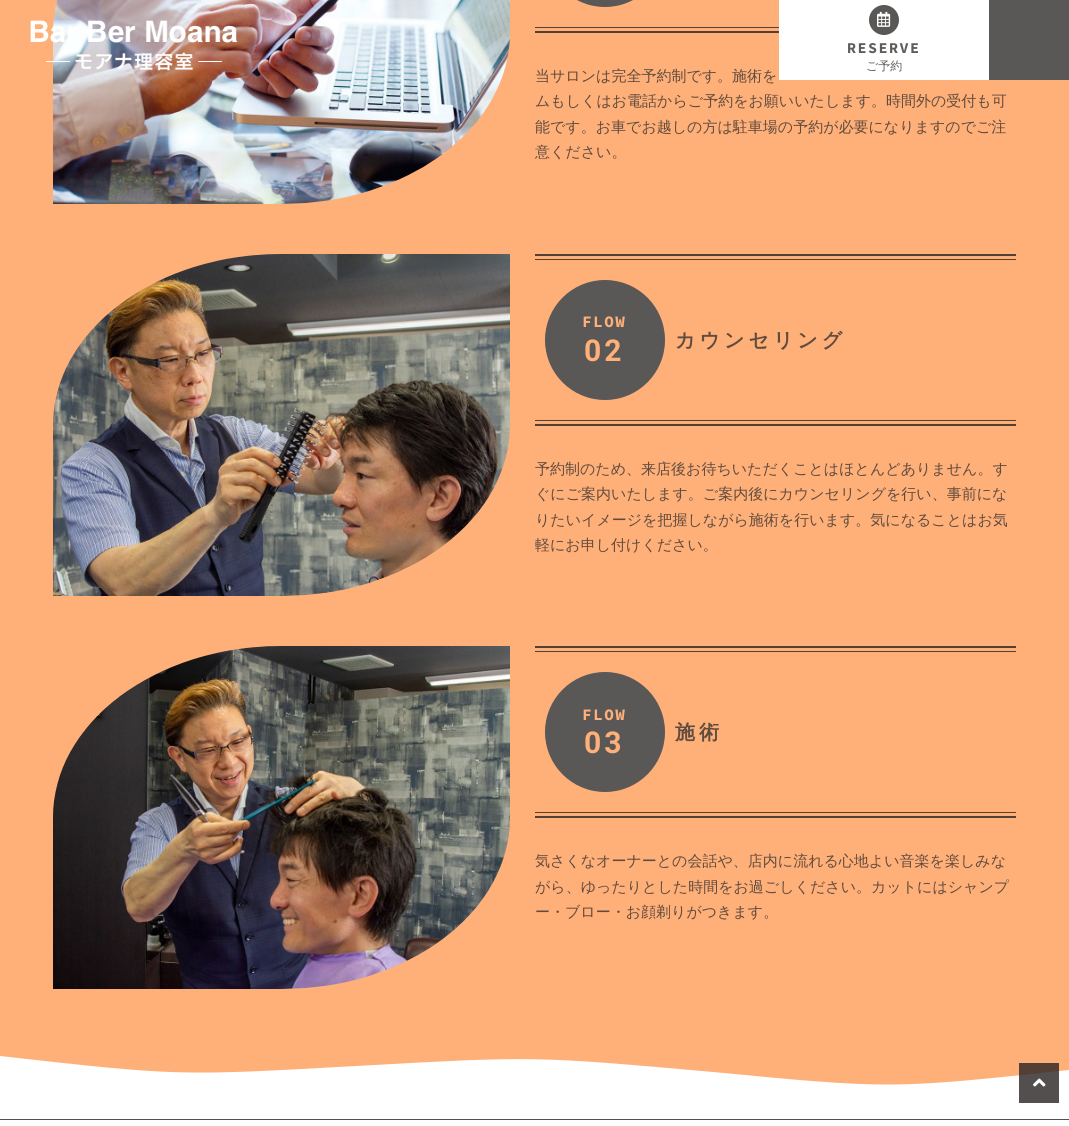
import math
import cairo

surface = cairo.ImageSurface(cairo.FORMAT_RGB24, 1069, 1126)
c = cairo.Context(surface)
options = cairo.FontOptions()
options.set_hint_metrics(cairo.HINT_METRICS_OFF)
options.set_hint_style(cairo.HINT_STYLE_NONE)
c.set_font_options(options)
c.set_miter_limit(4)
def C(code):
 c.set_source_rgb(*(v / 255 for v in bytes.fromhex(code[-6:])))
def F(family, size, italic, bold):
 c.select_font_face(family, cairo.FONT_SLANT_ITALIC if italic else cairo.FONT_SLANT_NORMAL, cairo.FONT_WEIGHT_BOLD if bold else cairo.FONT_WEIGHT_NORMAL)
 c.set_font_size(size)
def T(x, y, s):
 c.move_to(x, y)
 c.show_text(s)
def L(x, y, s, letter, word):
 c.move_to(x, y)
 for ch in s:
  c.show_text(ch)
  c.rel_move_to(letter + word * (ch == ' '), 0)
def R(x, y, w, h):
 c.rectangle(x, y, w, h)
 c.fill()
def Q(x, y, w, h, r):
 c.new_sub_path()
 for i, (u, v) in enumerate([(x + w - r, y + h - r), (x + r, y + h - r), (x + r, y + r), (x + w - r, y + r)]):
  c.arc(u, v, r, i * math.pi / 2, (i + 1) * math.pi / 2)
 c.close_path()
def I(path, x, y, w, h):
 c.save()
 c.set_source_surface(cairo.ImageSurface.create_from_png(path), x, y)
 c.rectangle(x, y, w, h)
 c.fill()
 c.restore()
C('ffffff')
c.paint()
C('ffaf78')
R(0,0,1069,1085)
I('3.png',53,0,457,204)
I('1.png',30,20,208,51)
C('ffffff')
R(779,0,210,80)
C('5a5856')
c.arc(884,20,15,0,2 * math.pi)
c.fill()
I('2.png',877,11,14,16)
F('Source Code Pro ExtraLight',15,0,1)
C('605c5a')
L(847,53,'RESERVE',1.5,0)
F('WenQuanYi Zen Hei Medium',12,0,0)
T(866,70,'ご予約')
C('5a5856')
R(989,0,80,80)
C('544033')
R(535,31,244,2)
R(535,27,244,1)
C('5a5856')
Q(545,-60,120,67,60)
c.fill()
F('WenQuanYi Zen Hei Medium',15,0,0)
C('604c3f')
T(535,81,'当サロンは完全予約制です。施術を')
T(535,106,'ムもしくはお電話からご予約をお願いいたします。時間外の受付も可')
T(535,132,'能です。お車でお越しの方は駐車場の予約が必要になりますのでご注')
T(535,157,'意ください。')
I('4.png',53,254,457,342)
C('544033')
R(535,254,481,2)
R(535,424,481,2)
R(535,259,481,1)
R(535,420,481,1)
C('5a5856')
c.arc(605,340,60,0,2 * math.pi)
c.fill()
F('Source Code Pro ExtraLight',16,0,1)
C('ffaf78')
L(582,327,'FLOW',1.5,0)
F('Roboto',30,0,1)
L(584,361,'02',3,0)
F('WenQuanYi Zen Hei',20,0,1)
C('604c3f')
L(675,347,'カウンセリング',4,0)
F('WenQuanYi Zen Hei Medium',15,0,0)
T(535,474,'予約制のため、来店後お待ちいただくことはほとんどありません。す')
T(535,499,'ぐにご案内いたします。ご案内後にカウンセリングを行い、事前にな')
T(535,525,'りたいイメージを把握しながら施術を行います。気になることはお気')
T(535,550,'軽にお申し付けください。')
I('5.png',53,646,457,343)
C('544033')
R(535,646,481,2)
R(535,816,481,2)
R(535,651,481,1)
R(535,812,481,1)
C('5a5856')
c.arc(605,732,60,0,2 * math.pi)
c.fill()
F('Source Code Pro ExtraLight',16,0,1)
C('ffaf78')
L(582,720,'FLOW',1.5,0)
F('Roboto',30,0,1)
L(584,753,'03',3,0)
F('WenQuanYi Zen Hei',20,0,1)
C('604c3f')
L(675,739,'施術',4,0)
F('WenQuanYi Zen Hei Medium',15,0,0)
T(535,866,'気さくなオーナーとの会話や、店内に流れる心地よい音楽を楽しみな')
T(535,892,'がら、ゆったりとした時間をお過ごしください。カットにはシャンプ')
T(535,917,'ー・ブロー・お顔剃りがつきます。')
c.save()
c.rectangle(0,969,1069,120)
c.clip()
C('ffffff')
c.new_path()
c.move_to(0,1056)
c.curve_to(178,1076,178,1076,356,1066)
c.curve_to(534,1056,534,1056,713,1072)
c.curve_to(891,1089,891,1089,1069,1070)
c.line_to(1069,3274)
c.line_to(0,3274)
c.close_path()
c.fill()
c.restore()
c.set_source_rgba(0.161,0.141,0.133,0.8)
R(1019,1063,40,40)
I('6.png',1033,1078,13,9)
C('54504e')
R(0,1119,1069,1)
surface.write_to_png('o.png')
